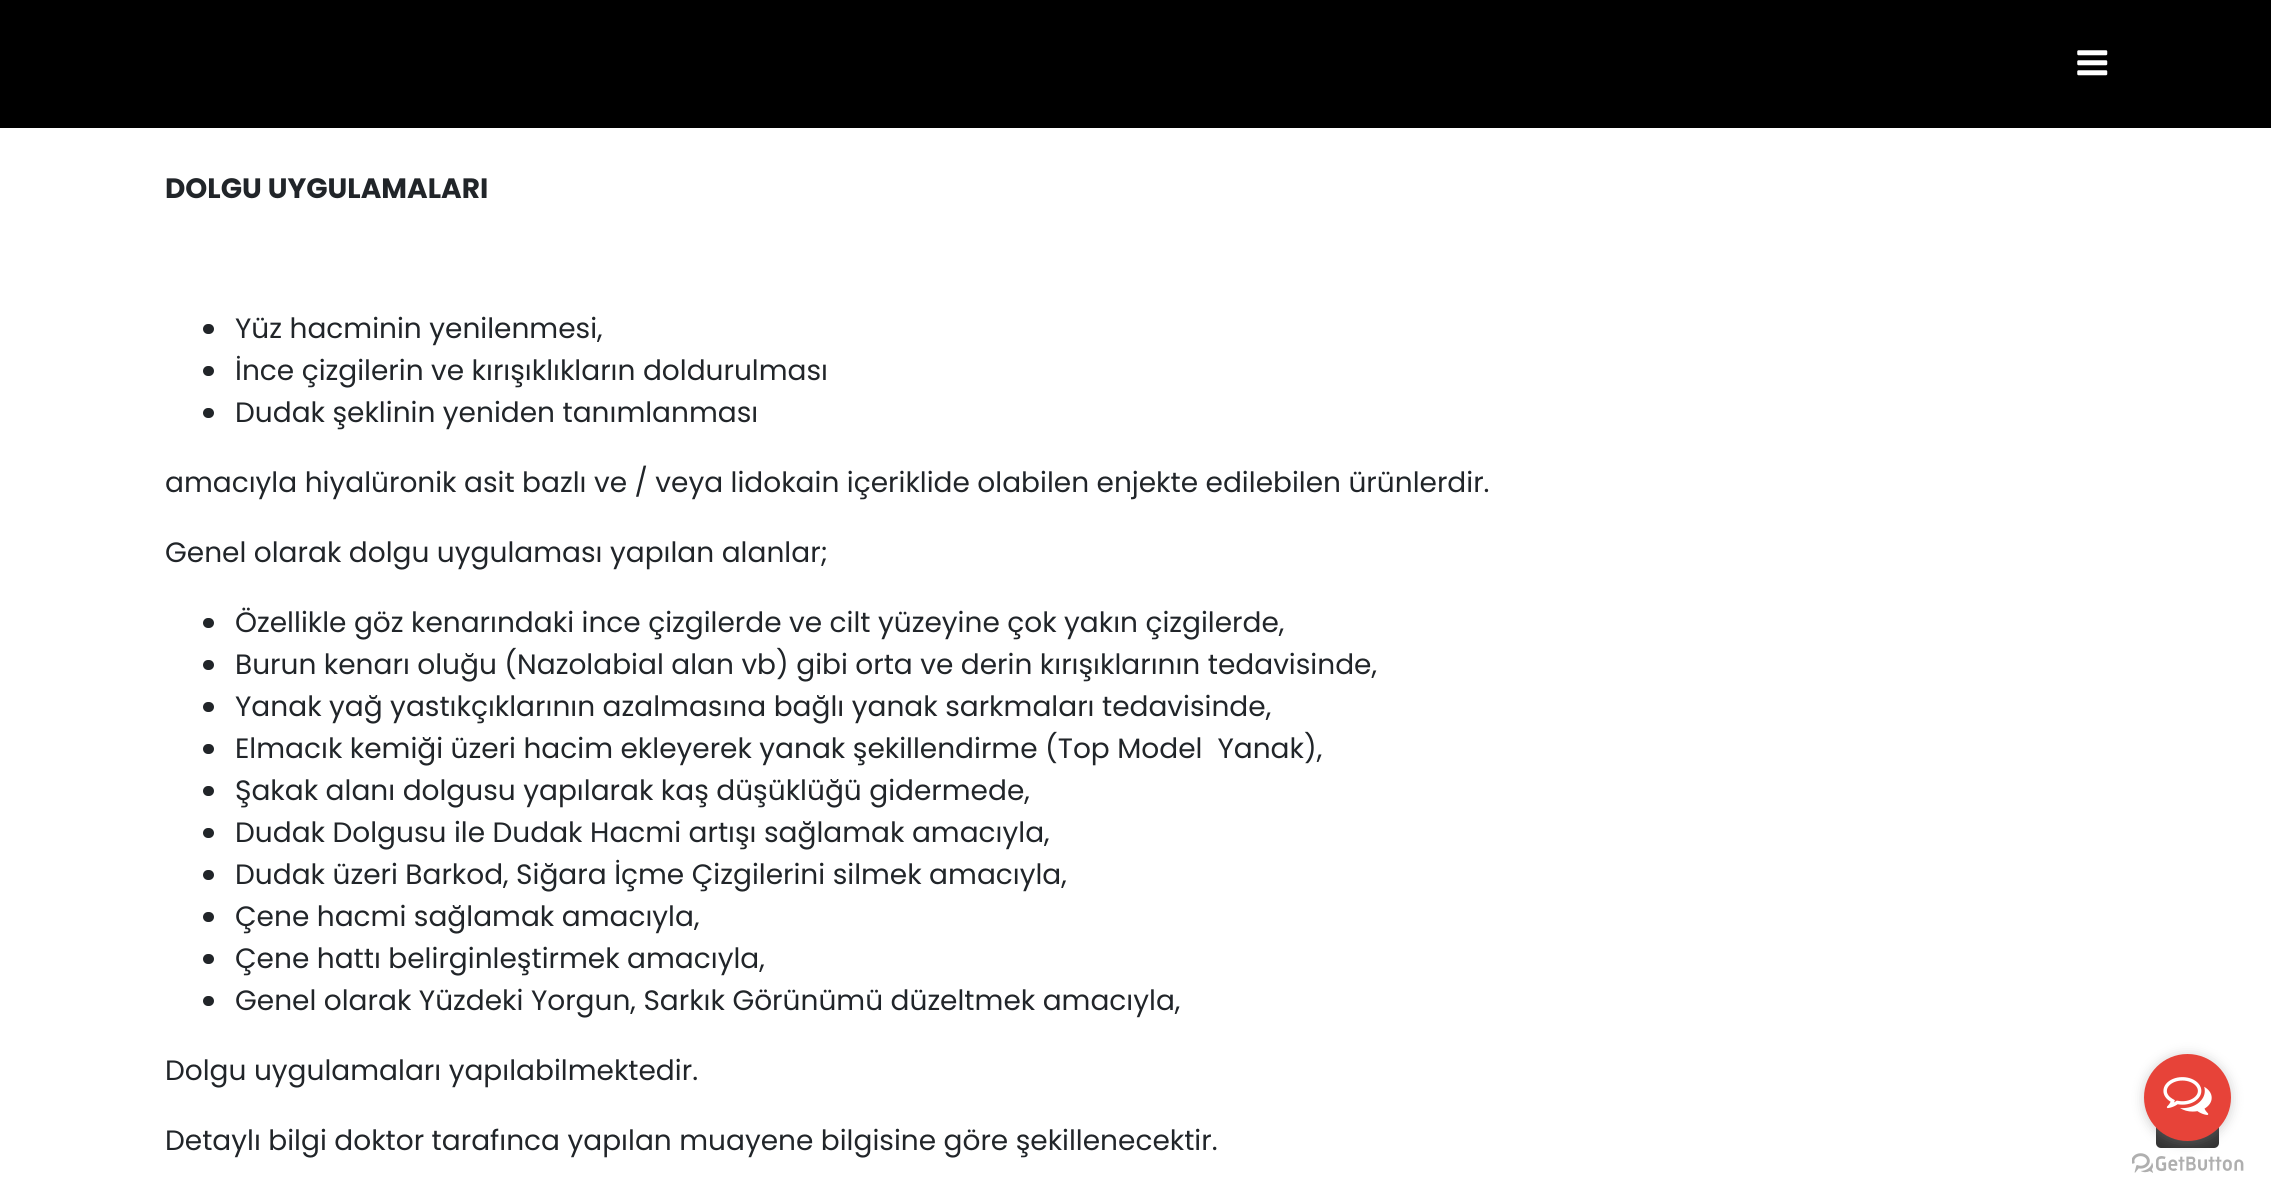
import math
import cairo

surface = cairo.ImageSurface(cairo.FORMAT_RGB24, 2271, 1199)
c = cairo.Context(surface)
options = cairo.FontOptions()
options.set_hint_metrics(cairo.HINT_METRICS_OFF)
options.set_hint_style(cairo.HINT_STYLE_NONE)
c.set_font_options(options)
c.set_miter_limit(4)
def C(code):
 c.set_source_rgb(*(v / 255 for v in bytes.fromhex(code[-6:])))
def F(family, size, italic, bold):
 c.select_font_face(family, cairo.FONT_SLANT_ITALIC if italic else cairo.FONT_SLANT_NORMAL, cairo.FONT_WEIGHT_BOLD if bold else cairo.FONT_WEIGHT_NORMAL)
 c.set_font_size(size)
def T(x, y, s):
 c.move_to(x, y)
 c.show_text(s)
def R(x, y, w, h):
 c.rectangle(x, y, w, h)
 c.fill()
def Q(x, y, w, h, r):
 c.new_sub_path()
 for i, (u, v) in enumerate([(x + w - r, y + h - r), (x + r, y + h - r), (x + r, y + r), (x + w - r, y + r)]):
  c.arc(u, v, r, i * math.pi / 2, (i + 1) * math.pi / 2)
 c.close_path()
def S(x, y, w, h, r, blur, alpha):
 c.push_group_with_content(cairo.CONTENT_ALPHA)
 c.set_operator(cairo.OPERATOR_SOURCE)
 for i in range(15, -16, -2):
  e = blur * i / 6
  if min(w, h) + 2 * e > 0:
   c.set_source_rgba(0, 0, 0, alpha * math.erfc((i - 1) / 8.5) / 2)
   Q(x - e, y - e, w + 2 * e, h + 2 * e, max(0, min(r + e + blur * .6, min(w, h) / 2 + e)))
   c.fill()
 c.mask(c.pop_group())
def I(path, x, y, w, h):
 c.save()
 c.set_source_surface(cairo.ImageSurface.create_from_png(path), x, y)
 c.rectangle(x, y, w, h)
 c.fill()
 c.restore()
C('ffffff')
c.paint()
C('000000')
R(0,0,2271,128)
I('1.png',2077,50,31,26)
F('Poppins',28,0,1)
C('212529')
T(165,198,'DOLGU UYGULAMALARI')
Q(203,324,11,10,5)
c.fill()
F('Poppins',28,0,0)
T(235,338,'Yüz hacminin yenilenmesi,')
Q(203,366,11,10,5)
c.fill()
T(235,380,'İnce çizgilerin ve kırışıklıkların doldurulması')
Q(203,408,11,10,5)
c.fill()
T(235,422,'Dudak şeklinin yeniden tanımlanması')
T(165,492,'amacıyla hiyalüronik asit bazlı ve / veya lidokain içeriklide olabilen enjekte edilebilen ürünlerdir.')
T(165,562,'Genel olarak dolgu uygulaması yapılan alanlar;')
Q(203,618,11,10,5)
c.fill()
T(235,632,'Özellikle göz kenarındaki ince çizgilerde ve cilt yüzeyine çok yakın çizgilerde,')
Q(203,660,11,10,5)
c.fill()
T(235,674,'Burun kenarı oluğu (Nazolabial alan vb) gibi orta ve derin kırışıklarının tedavisinde,')
Q(203,702,11,10,5)
c.fill()
T(235,716,'Yanak yağ yastıkçıklarının azalmasına bağlı yanak sarkmaları tedavisinde,')
Q(203,744,11,10,5)
c.fill()
T(235,758,'Elmacık kemiği üzeri hacim ekleyerek yanak şekillendirme (Top Model  Yanak),')
Q(203,786,11,10,5)
c.fill()
T(235,800,'Şakak alanı dolgusu yapılarak kaş düşüklüğü gidermede,')
Q(203,828,11,10,5)
c.fill()
T(235,842,'Dudak Dolgusu ile Dudak Hacmi artışı sağlamak amacıyla,')
Q(203,870,11,10,5)
c.fill()
T(235,884,'Dudak üzeri Barkod, Siğara İçme Çizgilerini silmek amacıyla,')
Q(203,912,11,10,5)
c.fill()
T(235,926,'Çene hacmi sağlamak amacıyla,')
Q(203,954,11,10,5)
c.fill()
T(235,968,'Çene hattı belirginleştirmek amacıyla,')
Q(203,996,11,10,5)
c.fill()
T(235,1010,'Genel olarak Yüzdeki Yorgun, Sarkık Görünümü düzeltmek amacıyla,')
T(165,1080,'Dolgu uygulamaları yapılabilmektedir.')
T(165,1150,'Detaylı bilgi doktor tarafınca yapılan muayene bilgisine göre şekillenecektir.')
I('3.png',2132,1153,112,20)
C('333333')
Q(2156,1085,63,63,5)
c.fill()
C('888888')
S(2144,1055,87,88,43.5,6,.4)
C('e74339')
c.arc(2187.5,1097.5,43.5,0,2 * math.pi)
c.fill()
I('2.png',2163,1077,49,38)
surface.write_to_png('o.png')
